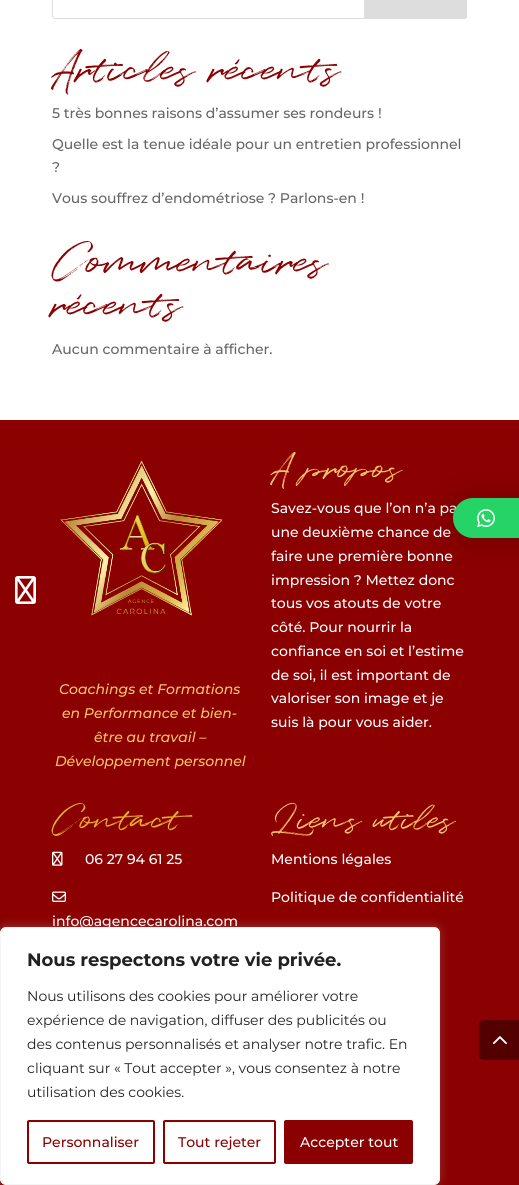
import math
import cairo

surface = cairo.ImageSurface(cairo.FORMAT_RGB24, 519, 1185)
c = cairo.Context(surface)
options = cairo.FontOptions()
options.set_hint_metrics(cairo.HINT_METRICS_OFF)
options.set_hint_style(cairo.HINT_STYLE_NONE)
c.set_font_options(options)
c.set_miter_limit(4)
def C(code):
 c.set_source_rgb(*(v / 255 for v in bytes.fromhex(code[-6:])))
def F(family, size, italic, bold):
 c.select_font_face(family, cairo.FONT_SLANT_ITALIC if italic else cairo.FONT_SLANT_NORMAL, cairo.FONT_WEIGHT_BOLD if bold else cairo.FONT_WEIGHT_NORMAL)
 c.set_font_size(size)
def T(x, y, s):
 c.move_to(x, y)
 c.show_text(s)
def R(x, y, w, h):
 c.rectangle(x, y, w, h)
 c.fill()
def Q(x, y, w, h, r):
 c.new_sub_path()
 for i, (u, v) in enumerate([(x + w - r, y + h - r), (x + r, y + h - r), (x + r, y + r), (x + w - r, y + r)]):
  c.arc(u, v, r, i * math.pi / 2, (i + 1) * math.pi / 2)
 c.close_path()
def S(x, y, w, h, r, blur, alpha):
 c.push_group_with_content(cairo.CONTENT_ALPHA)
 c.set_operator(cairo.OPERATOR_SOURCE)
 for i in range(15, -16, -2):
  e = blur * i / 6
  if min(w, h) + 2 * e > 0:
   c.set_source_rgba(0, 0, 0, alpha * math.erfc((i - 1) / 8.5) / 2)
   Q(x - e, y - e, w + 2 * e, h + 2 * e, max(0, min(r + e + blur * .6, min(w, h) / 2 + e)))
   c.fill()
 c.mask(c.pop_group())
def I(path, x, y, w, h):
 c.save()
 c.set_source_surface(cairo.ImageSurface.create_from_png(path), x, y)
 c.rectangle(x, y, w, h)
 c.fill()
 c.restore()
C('ffffff')
c.paint()
C('8b0000')
R(0,420,519,765)
I('1.png',15,576,21,28)
Q(52.5,-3.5,414,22,2.5)
C('dddddd')
c.set_line_width(1)
c.stroke()
c.new_path()
c.move_to(364.5,-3.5)
c.line_to(464,-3.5)
c.curve_to(465.5,-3.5,466.5,-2.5,466.5,-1)
c.line_to(466.5,16)
c.curve_to(466.5,17.5,465.5,18.5,464,18.5)
c.line_to(364.5,18.5)
c.close_path()
c.fill_preserve()
c.stroke()
F('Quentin',43,0,0)
C('8b0000')
T(52,81,'Articles récents')
F('Montserrat Medium',14,0,0)
C('666666')
T(52,118,'5 très bonnes raisons d’assumer ses rondeurs !')
T(52,149,'Quelle est la tenue idéale pour un entretien professionnel')
T(52,172,'?')
T(52,203,'Vous souffrez d’endométriose ? Parlons-en !')
F('Quentin',43,0,0)
C('8b0000')
T(52,273,'Commentaires')
T(52,316,'récents')
F('Montserrat Medium',14,0,0)
C('666666')
T(52,354,'Aucun commentaire à afficher.')
I('2.png',60,460,162,156)
F('Montserrat Medium',14,1,0)
C('fdc467')
T(59,694,'Coachings et Formations')
T(62,718,'en Performance et bien-')
T(94,742,'être au travail –')
T(55,766,'Développement personnel')
F('Quentin',35,0,0)
T(271,478,'A propos')
F('Montserrat Medium',14,0,0)
C('ffffff')
T(271,513,'Savez-vous que l’on n’a pa')
T(271,537,'une deuxième chance de')
T(271,561,'faire une première bonne')
T(271,585,'impression ? Mettez donc')
T(271,608,'tous vos atouts de votre')
T(271,632,'côté. Pour nourrir la')
T(271,656,'confiance en soi et l’estime')
T(271,680,'de soi, il est important de')
T(271,703,'valoriser son image et je')
T(271,727,'suis là pour vous aider.')
F('Quentin',35,0,0)
C('e7ae2d')
T(52,829,'Contact')
I('3.png',52,851,11,15)
F('Montserrat Medium',14,0,0)
C('ffffff')
T(85,864,'06 27 94 61 25')
I('4.png',52,891,14,11)
T(52,926,'info@agencecarolina.com')
F('Quentin',35,0,0)
C('fdc467')
T(271,829,'Liens utiles')
F('Montserrat Medium',14,0,0)
C('ffffff')
T(271,864,'Mentions légales')
T(271,902,'Politique de confidentialité')
C('000000')
S(453,500,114,40,20,16,.16)
C('25d366')
Q(453,498,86,40,20)
c.fill()
I('5.png',477,509,18,19)
C('acabab')
S(0,926,440,258,6,5,.3)
C('ffffff')
Q(.5,927.5,439,257,5.5)
c.fill_preserve()
C('f4f4f4')
c.stroke()
F('Montserrat',18,0,1)
C('212121')
T(27,966,'Nous respectons votre vie privée.')
F('Montserrat',14,0,0)
T(27,1001,'Nous utilisons des cookies pour améliorer votre')
T(27,1025,'expérience de navigation, diffuser des publicités ou')
T(27,1049,'des contenus personnalisés et analyser notre trafic. En')
T(27,1073,'cliquant sur « Tout accepter », vous consentez à notre')
T(27,1097,'utilisation des cookies.')
Q(28,1121,126,42,1)
C('8b0000')
c.set_line_width(2)
c.stroke()
F('Montserrat Medium',14,0,0)
T(42,1147,'Personnaliser')
Q(164,1121,111,42,1)
c.stroke()
T(178,1147,'Tout rejeter')
Q(285,1121,127,42,1)
c.fill_preserve()
c.stroke()
C('ffffff')
T(300,1147,'Accepter tout')
C('530000')
c.new_path()
c.move_to(484,1020)
c.line_to(519,1020)
c.line_to(519,1060)
c.line_to(484,1060)
c.curve_to(481,1060,479,1058,479,1055)
c.line_to(479,1025)
c.curve_to(479,1022,481,1020,484,1020)
c.close_path()
c.fill()
I('6.png',492,1036,15,9)
surface.write_to_png('o.png')
